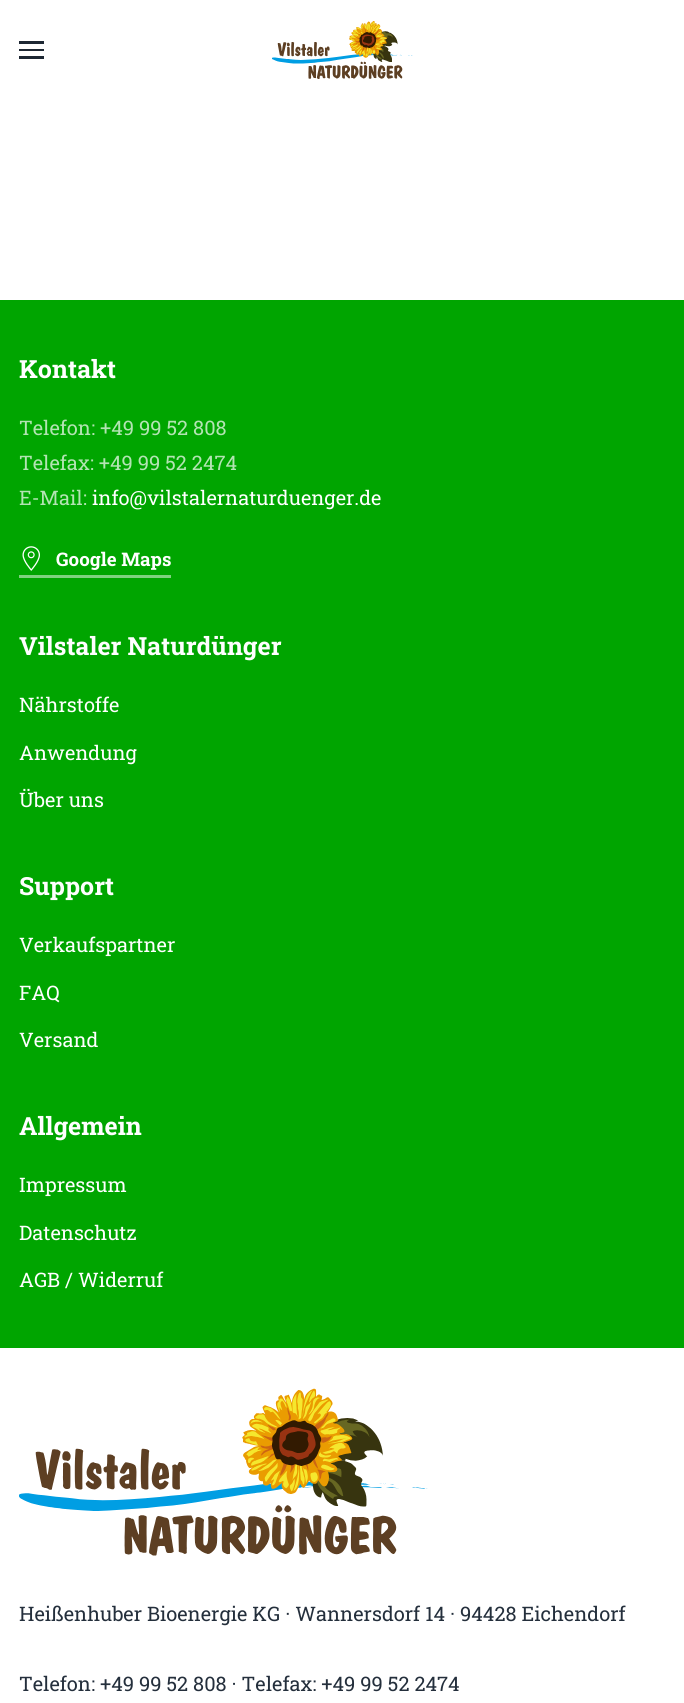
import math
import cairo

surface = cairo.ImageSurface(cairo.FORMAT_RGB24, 684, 1703)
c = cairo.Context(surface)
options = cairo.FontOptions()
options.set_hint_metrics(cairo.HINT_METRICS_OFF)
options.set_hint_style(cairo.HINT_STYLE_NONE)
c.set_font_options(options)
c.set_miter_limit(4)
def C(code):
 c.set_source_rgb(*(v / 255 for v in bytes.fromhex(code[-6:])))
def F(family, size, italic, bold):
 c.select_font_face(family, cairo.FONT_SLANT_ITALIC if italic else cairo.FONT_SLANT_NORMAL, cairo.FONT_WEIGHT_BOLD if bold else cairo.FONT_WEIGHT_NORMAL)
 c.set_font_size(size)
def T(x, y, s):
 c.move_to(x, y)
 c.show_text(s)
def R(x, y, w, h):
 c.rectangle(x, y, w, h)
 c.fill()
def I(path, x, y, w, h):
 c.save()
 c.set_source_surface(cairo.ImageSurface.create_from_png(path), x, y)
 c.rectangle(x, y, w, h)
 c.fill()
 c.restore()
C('ffffff')
c.paint()
C('1d2733')
R(19,41,25,3)
R(19,49,25,2)
R(19,56,25,3)
I('1.png',272,21,141,58)
C('00a500')
R(0,300,684,1048)
F('Roboto Slab',25,0,1)
C('ffffff')
T(19,378,'Kontakt')
F('Roboto Slab',20,0,0)
C('b3e4b3')
T(19,435,'Telefon: +49 99 52 808')
T(19,470,'Telefax: +49 99 52 2474')
T(19,505,'E-Mail:')
C('ffffff')
T(92,505,'info@vilstalernaturduenger.de')
C('80d280')
R(19,575,152,3)
I('2.png',22,546,18,25)
F('Roboto Slab',18.75,0,1)
C('ffffff')
T(56,566,'Google Maps')
F('Roboto Slab',25,0,1)
T(19,655,'Vilstaler Naturdünger')
F('Roboto Slab',20,0,0)
T(19,712,'Nährstoffe')
T(19,760,'Anwendung')
T(19,807,'Über uns')
F('Roboto Slab',25,0,1)
T(19,895,'Support')
F('Roboto Slab',20,0,0)
T(19,952,'Verkaufspartner')
T(19,1000,'FAQ')
T(19,1047,'Versand')
F('Roboto Slab',25,0,1)
T(19,1135,'Allgemein')
F('Roboto Slab',20,0,0)
T(19,1192,'Impressum')
T(19,1240,'Datenschutz')
T(19,1287,'AGB / Widerruf')
I('3.png',19,1388,409,168)
C('242f3c')
T(19,1621,'Heißenhuber Bioenergie KG · Wannersdorf 14 · 94428 Eichendorf')
T(19,1691,'Telefon: +49 99 52 808 · Telefax: +49 99 52 2474')
surface.write_to_png('o.png')
